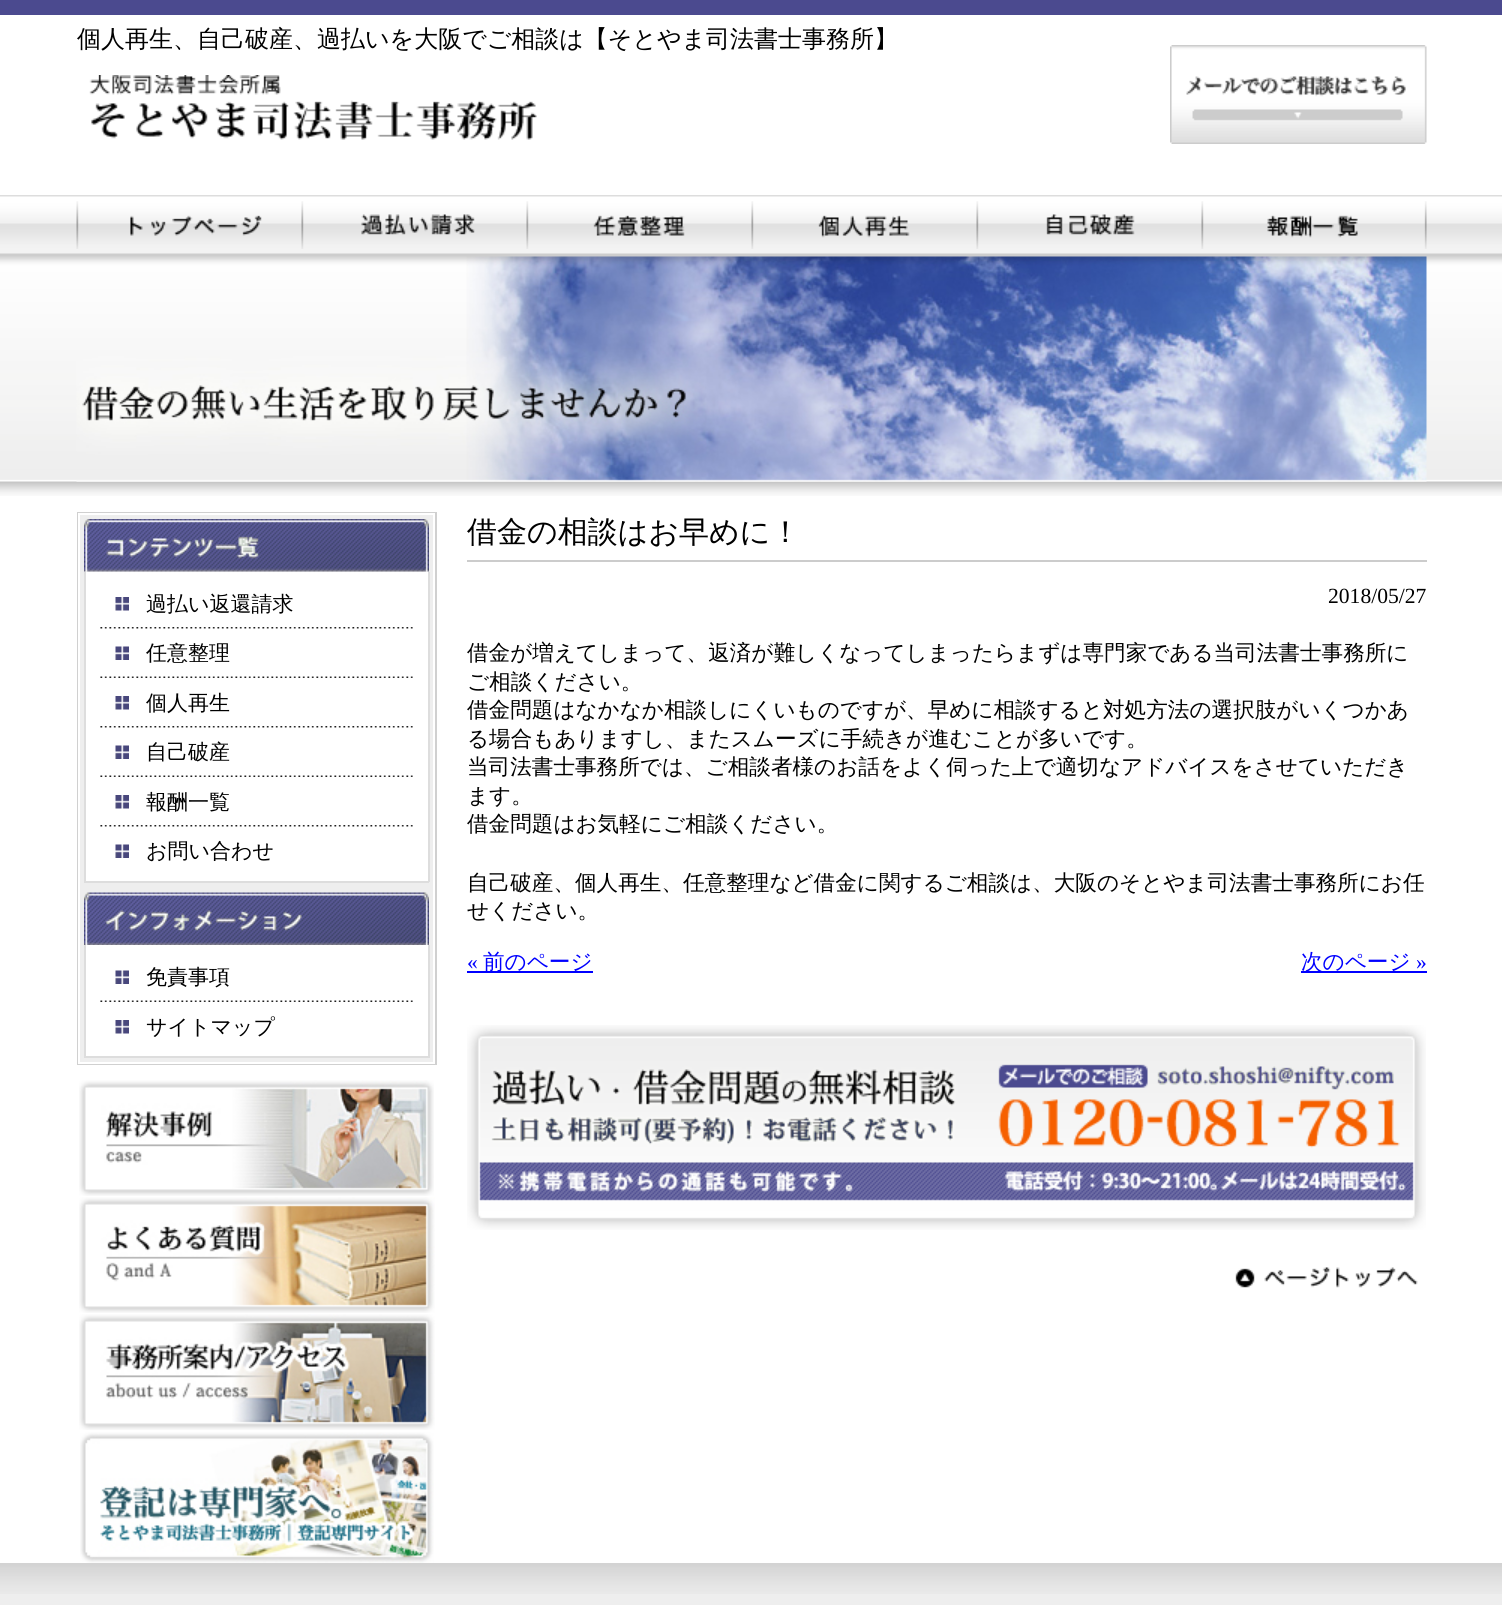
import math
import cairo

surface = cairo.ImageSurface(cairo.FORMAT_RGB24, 1502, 1605)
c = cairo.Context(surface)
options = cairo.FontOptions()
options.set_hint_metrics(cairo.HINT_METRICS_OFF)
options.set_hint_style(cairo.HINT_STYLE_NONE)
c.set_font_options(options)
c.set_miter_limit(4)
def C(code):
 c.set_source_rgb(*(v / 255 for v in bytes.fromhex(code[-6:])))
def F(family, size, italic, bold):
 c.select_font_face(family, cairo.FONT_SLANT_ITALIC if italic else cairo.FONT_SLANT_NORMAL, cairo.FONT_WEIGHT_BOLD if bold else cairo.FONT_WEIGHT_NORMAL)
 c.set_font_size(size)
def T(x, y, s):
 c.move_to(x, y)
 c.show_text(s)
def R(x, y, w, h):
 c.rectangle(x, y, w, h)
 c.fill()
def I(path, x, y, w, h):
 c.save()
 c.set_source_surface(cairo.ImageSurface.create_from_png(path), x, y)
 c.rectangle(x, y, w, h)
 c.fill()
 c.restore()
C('ffffff')
c.paint()
C('4b4a8f')
R(0,0,1502,15)
F('WenQuanYi Zen Hei Medium',24,0,0)
C('000000')
T(77,47,'個人再生、自己破産、過払いを大阪でご相談は【そとやま司法書士事務所】')
I('1.png',89,75,448,65)
I('2.png',1170,45,257,99)
I('3.png',0,195,1502,60)
I('4.png',76,201,186,48)
I('5.png',301,201,174,48)
I('6.png',526,201,159,48)
I('7.png',751,201,159,48)
I('8.png',976,201,159,48)
I('9.png',1201,201,226,48)
I('10.png',0,255,1502,225)
I('12.png',0,481,1502,15)
I('11.png',76,256,1351,226)
c.rectangle(78,513,358,551)
C('d0d0d0')
c.stroke()
C('eeeeee')
c.rectangle(79,514,355,549)
c.fill_preserve()
C('ffffff')
c.stroke()
I('13.png',84,519,345,53)
R(86,572,342,309)
C('dddddd')
R(428,572,2,310)
R(84,881,345,2)
R(84,572,2,310)
I('14.png',100,627,313,2)
I('15.png',115,597,14,14)
F('WenQuanYi Zen Hei Medium',21,0,0)
C('000000')
T(146,611,'過払い返還請求')
I('16.png',100,676,313,2)
I('17.png',115,646,14,14)
T(146,660,'任意整理')
I('14.png',100,726,313,2)
I('15.png',115,696,14,14)
T(146,710,'個人再生')
I('16.png',100,775,313,2)
I('17.png',115,745,14,14)
T(146,759,'自己破産')
I('14.png',100,825,313,2)
I('15.png',115,795,14,14)
T(146,809,'報酬一覧')
I('17.png',115,844,14,14)
T(146,858,'お問い合わせ')
I('18.png',84,892,345,53)
C('ffffff')
R(86,945,342,111)
C('dddddd')
R(428,945,2,113)
R(84,1056,345,2)
R(84,945,2,113)
I('16.png',100,1000,313,2)
I('17.png',115,970,14,14)
C('000000')
T(146,984,'免責事項')
I('15.png',115,1020,14,14)
T(146,1034,'サイトマップ')
I('19.png',79,1080,355,116)
I('20.png',79,1197,356,116)
I('21.png',79,1314,356,116)
I('22.png',80,1432,354,131)
C('cccccc')
R(467,560,960,2)
F('WenQuanYi Zen Hei Medium',30,0,0)
C('000000')
T(467,542,'借金の相談はお早めに！')
F('Liberation Serif',21.6,0,0)
T(1328,603,'2018/05/27')
F('WenQuanYi Zen Hei Medium',21.6,0,0)
T(467,660,'借金が増えてしまって、返済が難しくなってしまったらまずは専門家である当司法書士事務所に')
T(467,689,'ご相談ください。')
T(467,717,'借金問題はなかなか相談しにくいものですが、早めに相談すると対処方法の選択肢がいくつかあ')
T(467,746,'る場合もありますし、またスムーズに手続きが進むことが多いです。')
T(467,774,'当司法書士事務所では、ご相談者様のお話をよく伺った上で適切なアドバイスをさせていただき')
T(467,803,'ます。')
T(467,831,'借金問題はお気軽にご相談ください。')
T(467,890,'自己破産、個人再生、任意整理など借金に関するご相談は、大阪のそとやま司法書士事務所にお任')
T(467,918,'せください。')
F('Liberation Serif',21.6,0,0)
C('0000ff')
T(467,969,'«')
R(467,971,126,2)
F('WenQuanYi Zen Hei Medium',21.6,0,0)
T(483,969,'前のページ')
R(1301,971,126,2)
T(1301,969,'次のページ')
F('Liberation Serif',21.6,0,0)
T(1416,969,'»')
I('23.png',467,1025,959,205)
I('24.png',1235,1267,183,21)
C('eeeeee')
R(0,1594,1502,11)
I('25.png',0,1563,1502,31)
surface.write_to_png('o.png')
